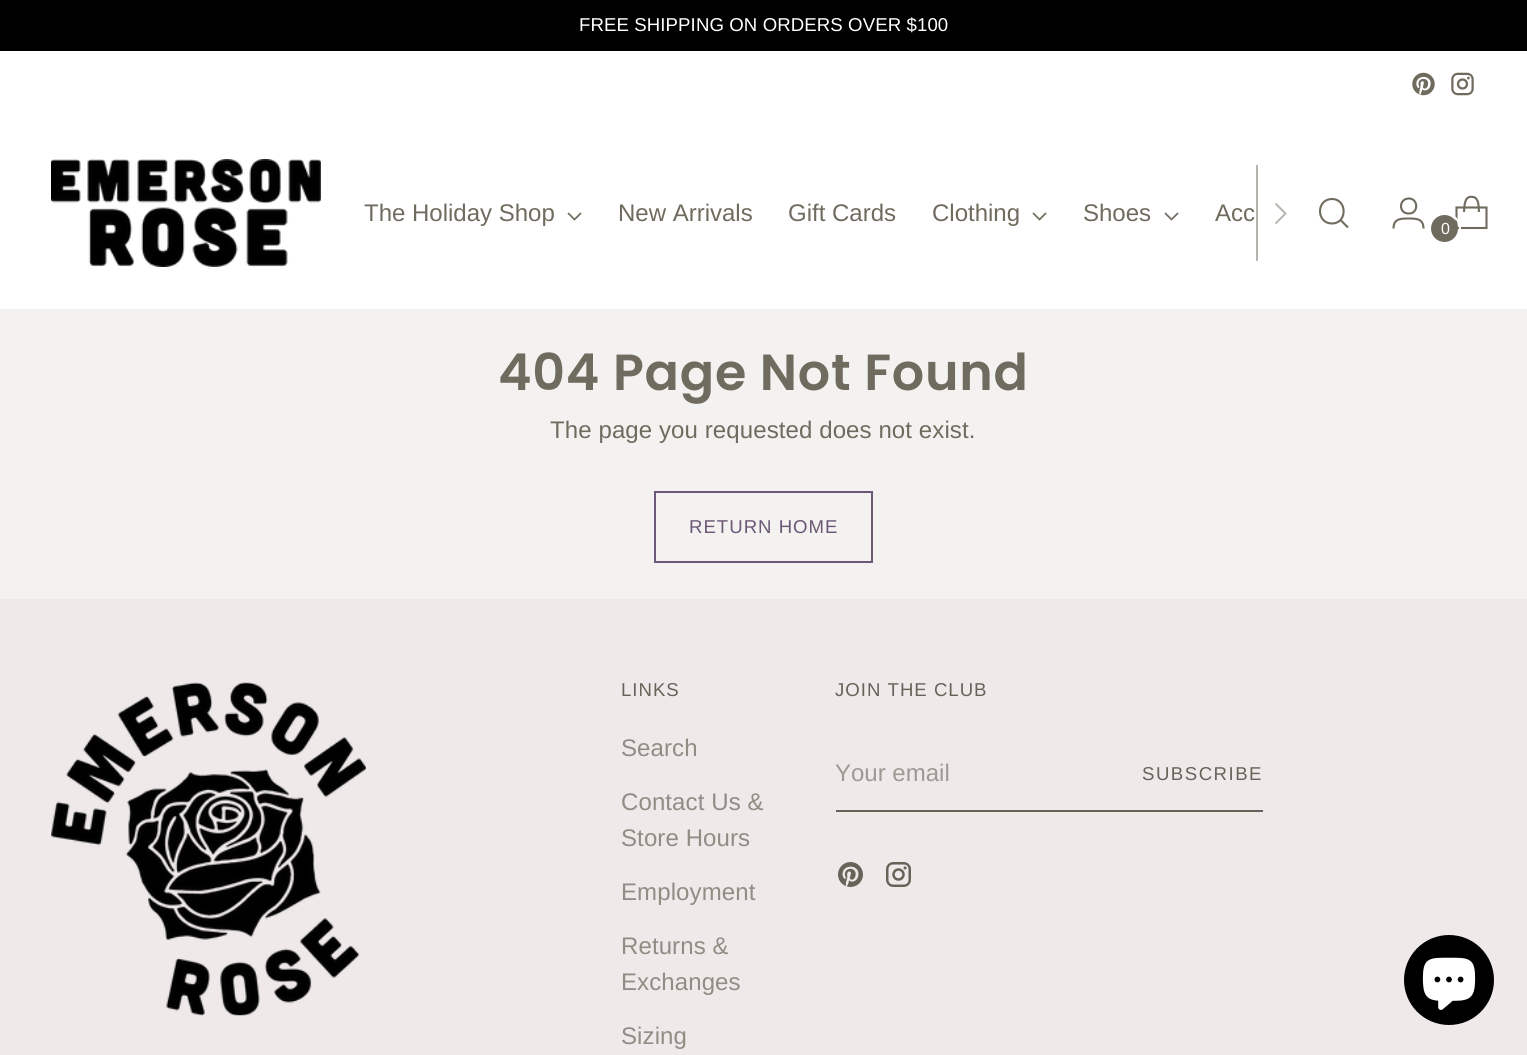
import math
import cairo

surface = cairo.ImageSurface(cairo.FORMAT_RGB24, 1527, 1055)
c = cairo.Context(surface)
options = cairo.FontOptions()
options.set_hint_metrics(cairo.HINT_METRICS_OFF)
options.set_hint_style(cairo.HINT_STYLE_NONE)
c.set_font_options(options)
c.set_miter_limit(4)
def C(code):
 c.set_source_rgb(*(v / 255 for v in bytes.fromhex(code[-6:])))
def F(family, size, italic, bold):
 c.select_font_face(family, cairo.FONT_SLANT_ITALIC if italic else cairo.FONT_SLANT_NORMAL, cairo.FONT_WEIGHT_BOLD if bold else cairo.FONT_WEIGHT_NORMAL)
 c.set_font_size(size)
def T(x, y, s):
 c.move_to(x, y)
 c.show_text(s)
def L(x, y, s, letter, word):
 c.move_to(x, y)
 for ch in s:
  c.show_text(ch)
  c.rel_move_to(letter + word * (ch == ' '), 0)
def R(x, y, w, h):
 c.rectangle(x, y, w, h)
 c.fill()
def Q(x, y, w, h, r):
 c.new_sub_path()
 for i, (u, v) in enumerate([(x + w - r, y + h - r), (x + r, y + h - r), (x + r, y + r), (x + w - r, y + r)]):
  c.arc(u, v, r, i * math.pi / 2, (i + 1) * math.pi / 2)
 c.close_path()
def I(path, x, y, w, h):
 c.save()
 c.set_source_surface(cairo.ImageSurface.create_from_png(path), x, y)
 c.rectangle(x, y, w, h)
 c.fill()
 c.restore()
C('f4f2f1')
c.paint()
C('000000')
R(0,0,1527,51)
F('Arimo',18.6,0,0)
C('ffffff')
L(579,31,'FREE SHIPPING ON ORDERS OVER $100',.1,0)
R(0,51,1527,258)
I('1.png',1412,72,23,24)
I('2.png',1451,72,23,24)
I('3.png',51,159,270,108)
F('Arimo',24,0,0)
C('706b5f')
T(364,221,'The Holiday Shop')
c.new_path()
c.move_to(568,213)
c.line_to(574.5,219.5)
c.line_to(581,213)
c.set_line_width(1.7)
c.stroke()
T(618,221,'New Arrivals')
T(788,221,'Gift Cards')
T(932,221,'Clothing')
c.new_path()
c.move_to(1033,213)
c.line_to(1039.5,219.5)
c.line_to(1046,213)
c.stroke()
T(1083,221,'Shoes')
c.new_path()
c.move_to(1165,213)
c.line_to(1171.5,219.5)
c.line_to(1178,213)
c.stroke()
T(1215,221,'Acc')
C('b8b5af')
R(1256,165,2,96)
c.new_path()
c.move_to(1275.5,223.5)
c.line_to(1285.5,213.5)
c.line_to(1275.5,203.5)
c.set_line_width(2)
c.stroke()
c.new_path()
c.move_to(1332,223.5)
c.curve_to(1347.5,223.5,1347.5,199,1332,199)
c.curve_to(1316,199,1316,223.5,1332,223.5)
c.close_path()
C('706b5f')
c.set_line_width(2.1)
c.set_line_cap(cairo.LINE_CAP_ROUND)
c.stroke()
c.new_path()
c.move_to(1340.5,220)
c.line_to(1348,227.5)
c.set_line_cap(cairo.LINE_CAP_BUTT)
c.stroke()
c.new_path()
c.move_to(1408.5,213.5)
c.curve_to(1419,214,1418.5,198,1408.5,198.5)
c.curve_to(1398.5,199,1398.5,213.5,1408.5,213.5)
c.close_path()
c.move_to(1393.5,228.5)
c.curve_to(1393.5,218.5,1401,218.5,1408.5,218.5)
c.curve_to(1416,218.5,1423.5,218.5,1423.5,228.5)
c.stroke()
c.new_path()
c.move_to(1479,212)
c.curve_to(1478.5,208.5,1479,204.5,1477.5,201)
c.curve_to(1477,199,1475,197,1473,197)
c.curve_to(1464,195,1464.5,206.5,1464,212)
c.set_line_join(cairo.LINE_JOIN_BEVEL)
c.stroke()
c.new_path()
c.move_to(1486.5,228)
c.line_to(1486.5,207.5)
c.line_to(1456.5,207.5)
c.line_to(1456.5,228)
c.close_path()
c.set_line_join(cairo.LINE_JOIN_MITER)
c.stroke()
Q(1431,214,29,30,14.5)
C('ffffff')
c.set_line_width(2)
c.stroke()
C('706b5f')
c.arc(1444.5,228.5,13.5,0,2 * math.pi)
c.fill()
F('Arimo',16,0,0)
C('ffffff')
L(1441,234,'0',.1,0)
F('Poppins SemiBold',50.75,0,0)
C('706b5f')
L(498,390,'404 Page Not Found',.75,0)
F('Arimo',24,0,0)
L(550,438,'The page you requested does not exist.',.1,0)
c.rectangle(655,492,217,70)
C('6b5876')
c.stroke()
F('Arimo',18.6,0,0)
L(689,533,'RETURN HOME',1,0)
C('efeae9')
R(0,599,1527,456)
I('4.png',51,682,315,334)
C('686359')
L(621,696,'LINKS',1,0)
F('Arimo',24,0,0)
C('918c84')
L(621,756,'Search',.1,0)
L(621,810,'Contact Us &',.1,0)
L(621,846,'Store Hours',.1,0)
L(621,900,'Employment',.1,0)
L(621,954,'Returns &',.1,0)
L(621,990,'Exchanges',.1,0)
L(621,1044,'Sizing',.1,0)
F('Arimo',18.6,0,0)
C('686359')
L(835,696,'JOIN THE CLUB',1,0)
R(836,810,427,2)
F('Arimo',24,0,0)
C('9e9993')
T(835,781,'Your email')
F('Arimo',18.6,0,0)
C('686359')
L(1142,780,'SUBSCRIBE',1.5,0)
I('5.png',838,862,25,25)
I('6.png',886,862,25,25)
C('000000')
c.arc(1449,980,45,0,2 * math.pi)
c.fill()
I('7.png',1422,957,54,53)
surface.write_to_png('o.png')
